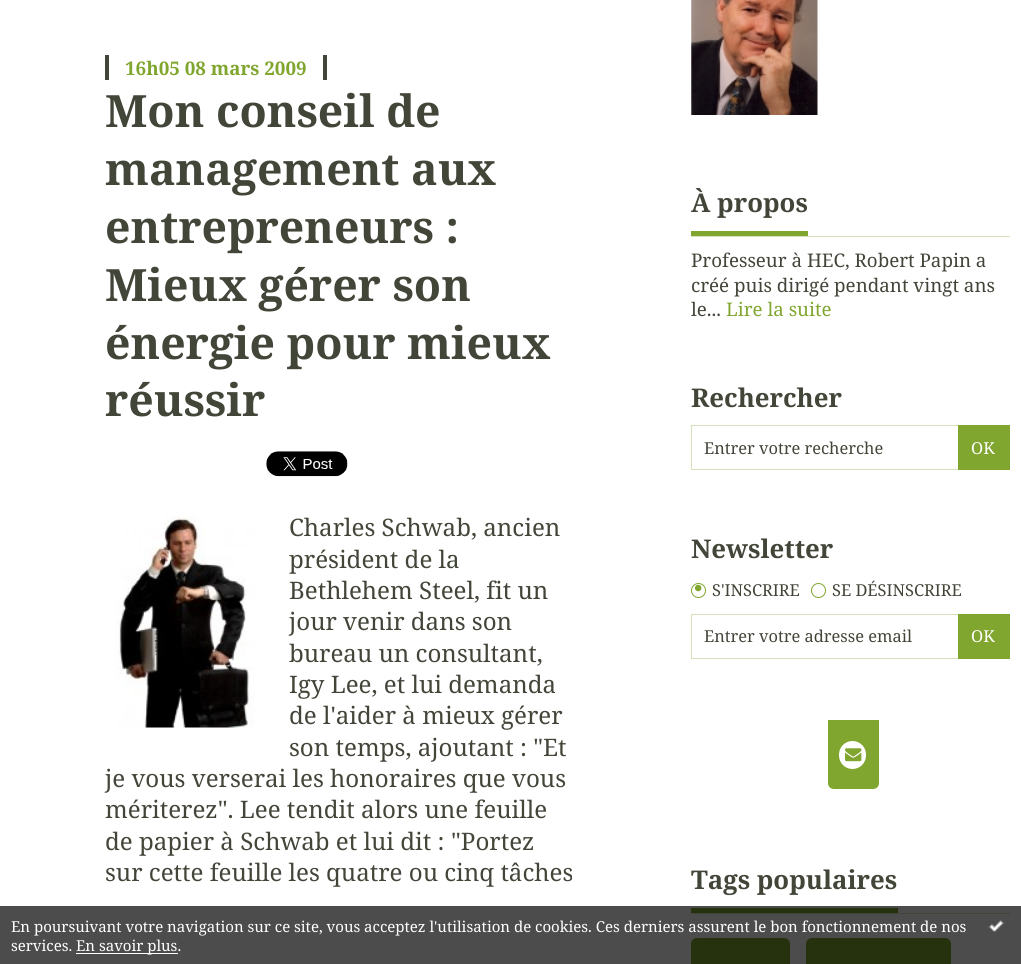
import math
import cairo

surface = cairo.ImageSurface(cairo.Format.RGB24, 1021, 964)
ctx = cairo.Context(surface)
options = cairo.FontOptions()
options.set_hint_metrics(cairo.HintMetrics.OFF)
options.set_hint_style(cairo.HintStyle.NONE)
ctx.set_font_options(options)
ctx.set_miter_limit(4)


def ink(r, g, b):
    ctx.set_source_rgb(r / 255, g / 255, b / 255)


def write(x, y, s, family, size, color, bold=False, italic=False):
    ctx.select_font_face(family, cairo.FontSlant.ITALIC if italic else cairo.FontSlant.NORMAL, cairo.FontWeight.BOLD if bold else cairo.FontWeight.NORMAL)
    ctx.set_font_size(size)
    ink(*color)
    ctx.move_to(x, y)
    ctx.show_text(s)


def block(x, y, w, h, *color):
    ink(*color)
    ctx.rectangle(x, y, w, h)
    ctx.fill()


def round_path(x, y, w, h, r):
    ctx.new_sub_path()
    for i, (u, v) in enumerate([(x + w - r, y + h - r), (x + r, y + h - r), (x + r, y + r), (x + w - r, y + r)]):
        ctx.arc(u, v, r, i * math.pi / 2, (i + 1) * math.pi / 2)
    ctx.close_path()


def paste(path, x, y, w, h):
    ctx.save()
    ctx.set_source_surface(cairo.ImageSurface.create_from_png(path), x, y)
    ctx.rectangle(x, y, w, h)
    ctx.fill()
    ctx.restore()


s1 = dict(family="Noto Serif", size=18.75, color=(129, 166, 48), bold=True)
s2 = dict(family="Noto Serif", size=44.5, color=(66, 70, 57), bold=True)
s3 = dict(family="Noto Serif", size=24.1, color=(66, 70, 57))
s4 = dict(family="Noto Serif", size=25.75, color=(66, 70, 57), bold=True)
s5 = dict(family="Noto Serif", size=18.75, color=(66, 70, 57))
s6 = dict(family="Noto Serif", size=18.75, color=(129, 166, 48))
s7 = dict(family="Noto Serif", size=16.4, color=(66, 70, 57))
s8 = dict(family="Noto Serif", size=16.4, color=(255, 255, 255))
s9 = dict(family="Liberation Sans", size=24, color=(129, 166, 48))
s10 = dict(family="Noto Serif", size=15, color=(255, 255, 255))

ink(255, 255, 255)
ctx.paint()
write(125, 75, "16h05 08 mars 2009", **s1)
block(105, 55, 4, 25, 66, 70, 57)
block(323, 55, 4, 25, 66, 70, 57)
write(105, 127, "Mon conseil de", **s2)
write(105, 185, "management aux", **s2)
write(105, 243, "entrepreneurs :", **s2)
write(105, 301, "Mieux gérer son", **s2)
write(105, 359, "énergie pour mieux", **s2)
write(105, 416, "réussir", **s2)
paste("pic1.png", 266, 451, 82, 26)
paste("pic2.png", 115, 516, 140, 212)
write(289, 536, "Charles Schwab, ancien", **s3)
write(289, 568, "président de la", **s3)
write(289, 599, "Bethlehem Steel, fit un", **s3)
write(289, 630, "jour venir dans son", **s3)
write(289, 662, "bureau un consultant,", **s3)
write(289, 693, "Igy Lee, et lui demanda", **s3)
write(289, 724, "de l'aider à mieux gérer", **s3)
write(289, 756, "son temps, ajoutant : \"Et", **s3)
write(105, 787, "je vous verserai les honoraires que vous", **s3)
write(105, 818, "mériterez\". Lee tendit alors une feuille", **s3)
write(105, 850, "de papier à Schwab et lui dit :", **s3)
write(451, 850, "\"Portez", **s3)
write(105, 881, "sur cette feuille les quatre ou cinq tâches", **s3)
paste("pic3.png", 691, 0, 127, 115)
block(691, 236, 319, 1, 213, 225, 188)
block(691, 231, 117, 5, 129, 166, 48)
write(691, 212, "À propos", **s4)
write(691, 267, "Professeur à HEC, Robert Papin a", **s5)
write(691, 292, "créé puis dirigé pendant vingt ans", **s5)
write(691, 316, "le...", **s5)
write(726, 316, "Lire la suite", **s6)
write(691, 407, "Rechercher", **s4)
ctx.rectangle(691.5, 425.5, 318, 44)
ink(213, 225, 188)
ctx.set_line_width(1)
ctx.stroke()
write(704, 454, "Entrer votre recherche", **s7)
block(958, 425, 52, 45, 129, 166, 48)
write(971, 454, "OK", **s8)
write(691, 558, "Newsletter", **s4)
ctx.new_path()
ctx.arc(698.5, 590.5, 7, 0, 2 * math.pi)
ink(129, 166, 48)
ctx.stroke()
write(694, 596, "•", **s9)
write(712, 596, "S'INSCRIRE", **s7)
ctx.new_path()
ctx.arc(818.5, 590.5, 7, 0, 2 * math.pi)
ink(129, 166, 48)
ctx.stroke()
write(832, 596, "SE DÉSINSCRIRE", **s7)
ctx.rectangle(691.5, 614.5, 318, 44)
ink(213, 225, 188)
ctx.stroke()
write(704, 642, "Entrer votre adresse email", **s7)
block(958, 614, 52, 45, 129, 166, 48)
write(971, 642, "OK", **s8)
gradient = cairo.LinearGradient(853, 720, 853, 789)
gradient.add_color_stop_rgba(0, 0.502, 0.651, 0.188, 1)
gradient.add_color_stop_rgba(0.3, 0.506, 0.651, 0.188, 1)
ctx.set_source(gradient)
ctx.new_path()
ctx.move_to(828, 720)
ctx.line_to(879, 720)
ctx.line_to(879, 783)
ctx.curve_to(879, 786.5, 876.5, 789, 873, 789)
ctx.line_to(834, 789)
ctx.curve_to(830.5, 789, 828, 786.5, 828, 783)
ctx.close_path()
ctx.fill()
ink(255, 255, 255)
round_path(839, 741, 27, 28, 13.5)
ctx.fill()
paste("pic4.png", 845, 748, 17, 14)
block(691, 913, 319, 1, 213, 225, 188)
block(691, 908, 207, 5, 129, 166, 48)
write(691, 889, "Tags populaires", **s4)
ink(129, 166, 48)
round_path(691, 938, 99, 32, 6)
ctx.fill()
round_path(806, 938, 145, 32, 6)
ctx.fill()
ctx.set_source_rgba(0, 0, 0, 0.7)
ctx.rectangle(0, 906, 1021, 58)
ctx.fill()
write(11, 932, "En poursuivant votre navigation sur ce site, vous acceptez l'utilisation de cookies. Ces derniers assurent le bon fonctionnement de nos", **s10)
write(11, 951, "services.", **s10)
block(76, 953, 102, 1, 255, 255, 255)
write(76, 951, "En savoir plus.", **s10)
paste("pic5.png", 988, 920, 17, 12)
surface.write_to_png("screenshot.png")
